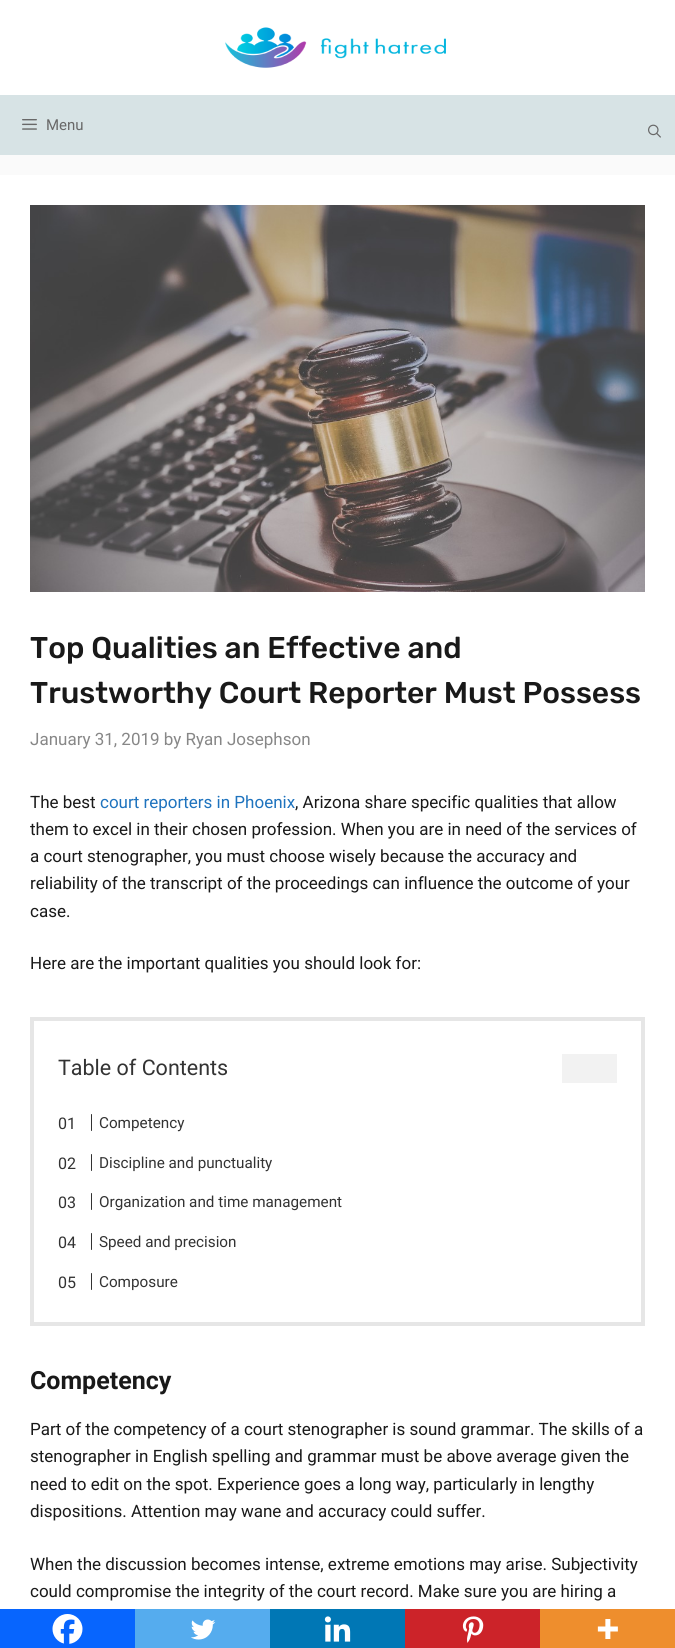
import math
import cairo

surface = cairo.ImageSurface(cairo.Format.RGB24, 675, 1648)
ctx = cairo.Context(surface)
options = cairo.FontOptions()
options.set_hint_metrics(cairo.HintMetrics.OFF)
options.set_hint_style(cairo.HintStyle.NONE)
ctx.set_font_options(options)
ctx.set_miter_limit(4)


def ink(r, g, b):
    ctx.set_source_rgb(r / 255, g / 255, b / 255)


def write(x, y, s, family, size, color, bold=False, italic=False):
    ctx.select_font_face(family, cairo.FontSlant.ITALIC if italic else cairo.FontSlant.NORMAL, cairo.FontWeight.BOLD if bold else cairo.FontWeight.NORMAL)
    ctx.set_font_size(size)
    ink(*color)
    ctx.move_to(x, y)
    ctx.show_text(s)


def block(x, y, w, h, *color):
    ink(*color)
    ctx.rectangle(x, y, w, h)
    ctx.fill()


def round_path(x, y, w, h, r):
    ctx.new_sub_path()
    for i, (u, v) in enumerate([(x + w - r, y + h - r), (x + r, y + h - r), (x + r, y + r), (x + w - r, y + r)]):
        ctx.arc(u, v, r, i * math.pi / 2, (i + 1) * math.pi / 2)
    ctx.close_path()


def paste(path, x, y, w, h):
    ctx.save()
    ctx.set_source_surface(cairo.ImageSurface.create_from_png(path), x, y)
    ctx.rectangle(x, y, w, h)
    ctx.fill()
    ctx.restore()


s1 = dict(family="Roboto", size=15, color=(104, 104, 104))
s2 = dict(family="Rubik Medium", size=30, color=(25, 25, 25))
s3 = dict(family="Roboto", size=17, color=(135, 135, 135))
s4 = dict(family="Roboto", size=17, color=(25, 25, 25))
s5 = dict(family="Roboto", size=17, color=(30, 115, 190))
s6 = dict(family="Roboto", size=21.5, color=(51, 51, 51))
s7 = dict(family="Roboto", size=16, color=(51, 51, 51))
s8 = dict(family="Roboto", size=15.25, color=(51, 51, 51))
s9 = dict(family="Roboto", size=25, color=(25, 25, 25), bold=True)

ink(250, 250, 250)
ctx.paint()
block(0, 0, 675, 95, 255, 255, 255)
paste("pic1.png", 225, 27, 221, 41)
block(0, 95, 675, 60, 215, 227, 229)
paste("pic2.png", 22, 119, 15, 11)
write(46, 130, "Menu", **s1)
paste("pic3.png", 648, 124, 13, 14)
block(0, 175, 675, 1434, 255, 255, 255)
paste("pic4.png", 30, 205, 615, 387)
write(30, 658, "Top Qualities an Effective and", **s2)
write(30, 703, "Trustworthy Court Reporter Must Possess", **s2)
write(30, 745, "January 31, 2019 by Ryan Josephson", **s3)
write(30, 808, "The best", **s4)
write(100, 808, "court reporters in Phoenix", **s5)
write(295, 808, ", Arizona share specific qualities that allow", **s4)
write(30, 835, "them to excel in their chosen profession. When you are in need of the services of", **s4)
write(30, 862, "a court stenographer, you must choose wisely because the accuracy and", **s4)
write(30, 889, "reliability of the transcript of the proceedings can influence the outcome of your", **s4)
write(30, 917, "case.", **s4)
write(30, 969, "Here are the important qualities you should look for:", **s4)
ctx.rectangle(32, 1019, 611, 305)
ink(230, 230, 230)
ctx.set_line_width(4)
ctx.stroke()
write(58, 1075, "Table of Contents", **s6)
block(562, 1054, 55, 29, 242, 242, 242)
write(58, 1129, "01", **s7)
round_path(91, 1114, 1, 17, 0.5)
ctx.fill()
write(99, 1128, "Competency", **s8)
write(58, 1169, "02", **s7)
round_path(91, 1154, 1, 17, 0.5)
ctx.fill()
write(99, 1168, "Discipline and punctuality", **s8)
write(58, 1208, "03", **s7)
round_path(91, 1193, 1, 17, 0.5)
ctx.fill()
write(99, 1207, "Organization and time management", **s8)
write(58, 1248, "04", **s7)
round_path(91, 1233, 1, 17, 0.5)
ctx.fill()
write(99, 1247, "Speed and precision", **s8)
write(58, 1288, "05", **s7)
round_path(91, 1273, 1, 17, 0.5)
ctx.fill()
write(99, 1287, "Composure", **s8)
write(30, 1389, "Competency", **s9)
write(30, 1435, "Part of the competency of a court stenographer is sound grammar. The skills of a", **s4)
write(30, 1462, "stenographer in English spelling and grammar must be above average given the", **s4)
write(30, 1490, "need to edit on the spot. Experience goes a long way, particularly in lengthy", **s4)
write(30, 1517, "dispositions. Attention may wane and accuracy could suffer.", **s4)
write(30, 1570, "When the discussion becomes intense, extreme emotions may arise. Subjectivity", **s4)
write(30, 1597, "could compromise the integrity of the court record. Make sure you are hiring a", **s4)
block(0, 1609, 135, 39, 7, 101, 254)
paste("pic5.png", 52, 1614, 31, 30)
block(135, 1609, 135, 39, 85, 172, 238)
paste("pic6.png", 191, 1619, 25, 21)
block(270, 1609, 135, 39, 0, 119, 181)
paste("pic7.png", 324, 1616, 27, 26)
block(405, 1609, 135, 39, 204, 35, 41)
paste("pic8.png", 462, 1616, 22, 27)
block(540, 1609, 135, 39, 238, 142, 45)
paste("pic9.png", 597, 1619, 21, 20)
surface.write_to_png("screenshot.png")
